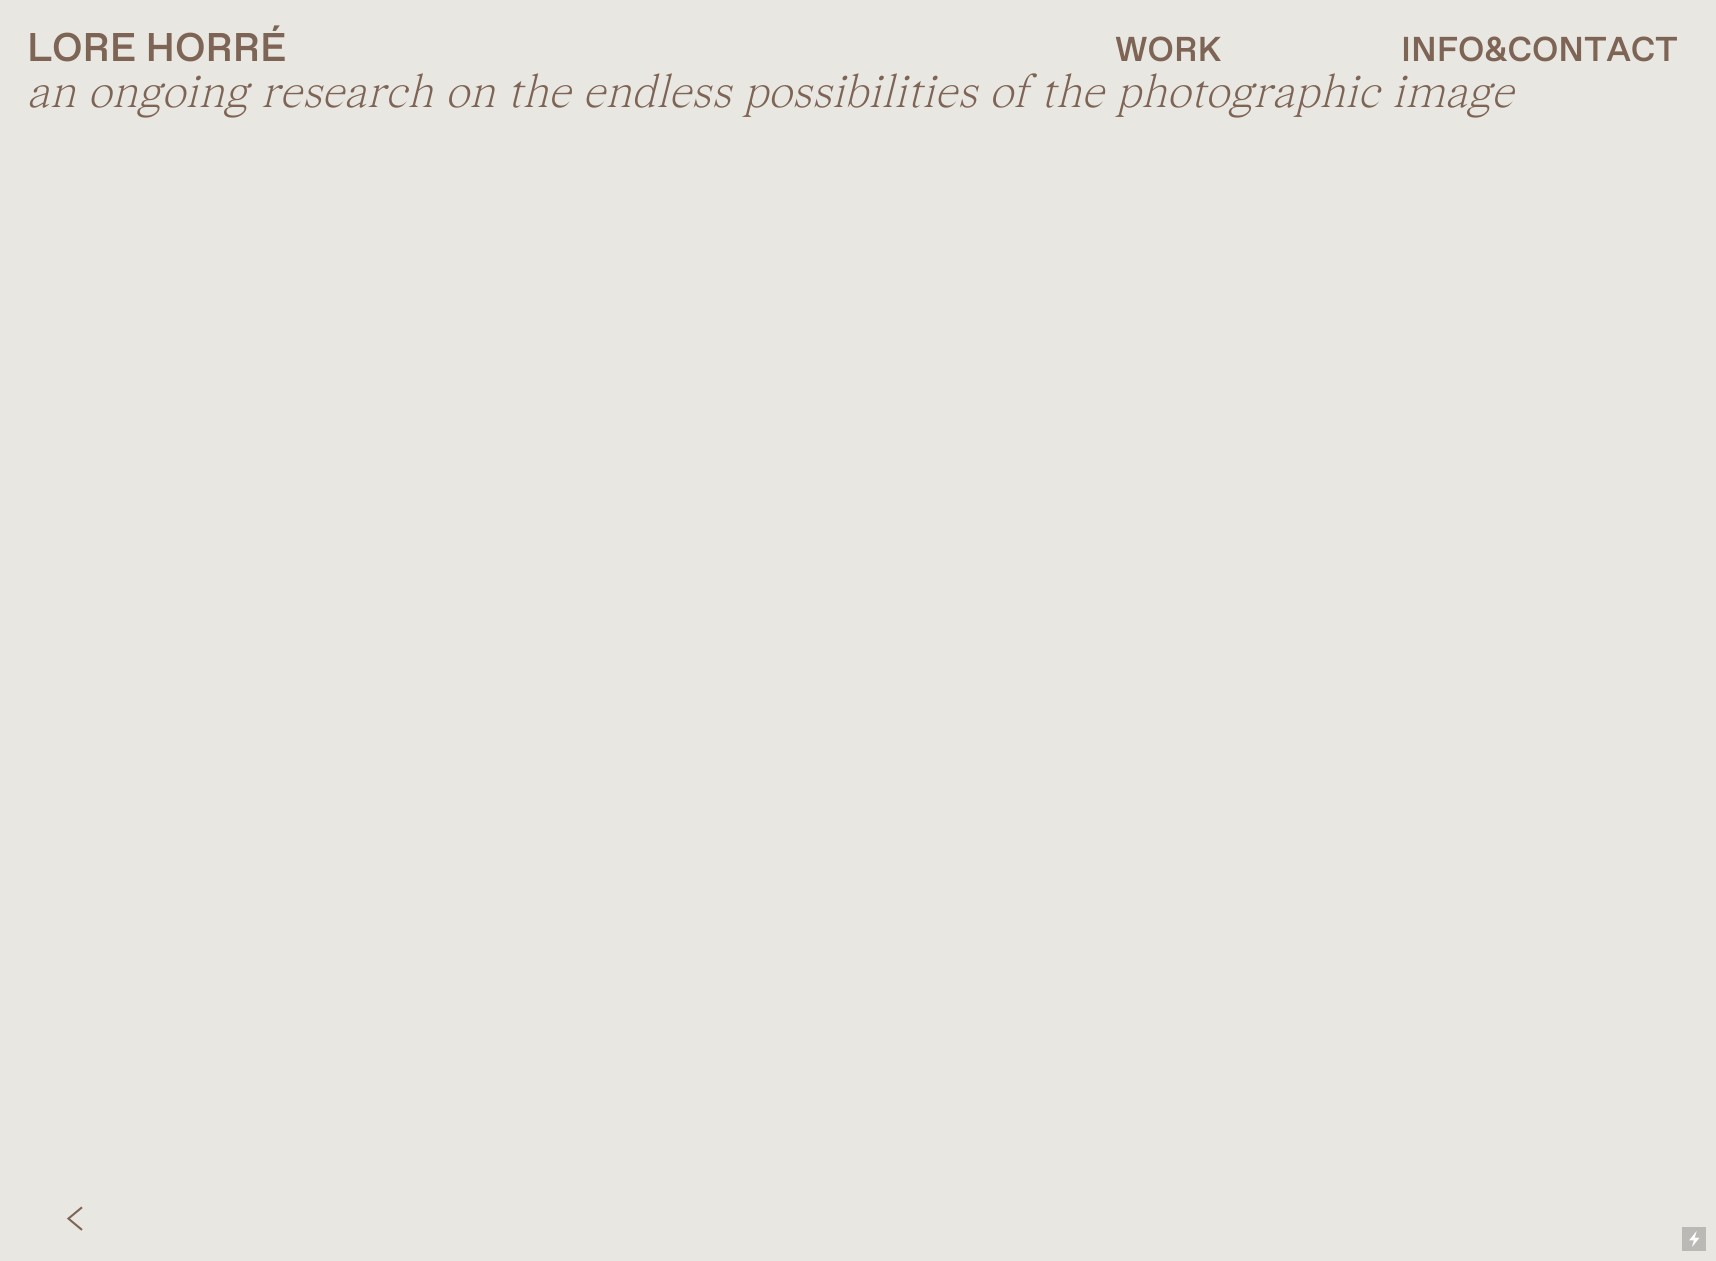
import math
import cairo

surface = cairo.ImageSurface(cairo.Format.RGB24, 1716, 1261)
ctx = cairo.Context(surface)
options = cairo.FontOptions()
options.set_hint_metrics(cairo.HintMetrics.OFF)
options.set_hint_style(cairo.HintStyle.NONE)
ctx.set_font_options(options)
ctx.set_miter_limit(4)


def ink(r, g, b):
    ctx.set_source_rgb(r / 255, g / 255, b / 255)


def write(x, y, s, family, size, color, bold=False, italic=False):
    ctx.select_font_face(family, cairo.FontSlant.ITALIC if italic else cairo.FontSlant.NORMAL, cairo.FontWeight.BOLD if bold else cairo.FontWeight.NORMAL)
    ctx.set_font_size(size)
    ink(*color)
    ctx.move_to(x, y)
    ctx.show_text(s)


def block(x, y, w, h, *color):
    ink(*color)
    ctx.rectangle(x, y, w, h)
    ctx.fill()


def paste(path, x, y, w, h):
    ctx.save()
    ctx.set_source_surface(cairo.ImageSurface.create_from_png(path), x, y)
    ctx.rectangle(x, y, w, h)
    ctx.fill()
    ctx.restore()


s1 = dict(family="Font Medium", size=40, color=(126, 100, 84))
s2 = dict(family="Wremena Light", size=47.2, color=(126, 100, 84), italic=True)
s3 = dict(family="Font Medium", size=34.5, color=(126, 100, 84))
s4 = dict(family="Wremena Light", size=60, color=(126, 100, 84))

ink(232, 231, 226)
ctx.paint()
write(27, 61, "LORE HORRÉ", **s1)
write(27, 107, "an ongoing research on the endless possibilities of the photographic image", **s2)
write(1115, 61, "WORK", **s3)
write(1401, 61, "INFO&CONTACT", **s3)
write(62, 1233, "<", **s4)
block(1682, 1227, 24, 24, 186, 185, 181)
paste("pic1.png", 1689, 1231, 11, 16)
surface.write_to_png("screenshot.png")
